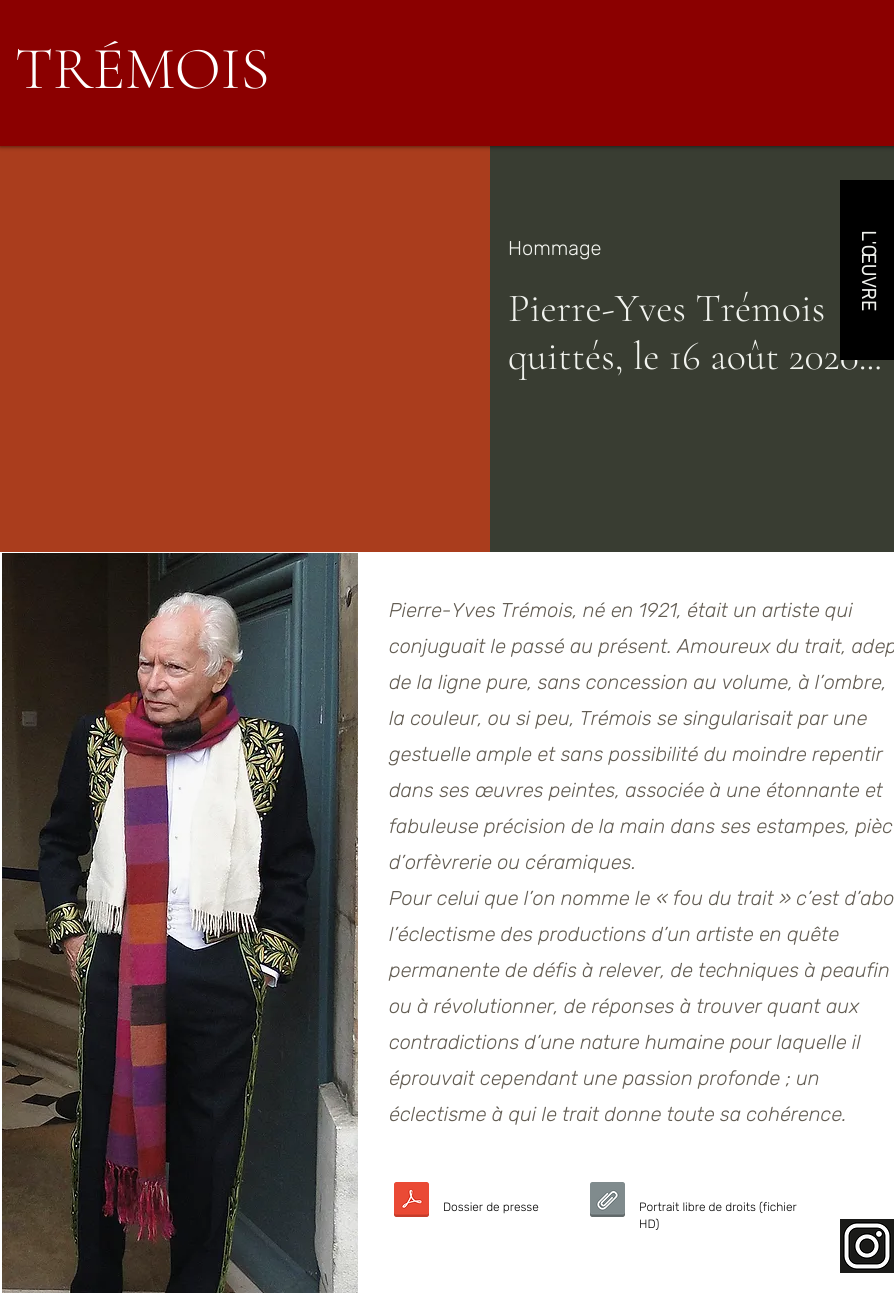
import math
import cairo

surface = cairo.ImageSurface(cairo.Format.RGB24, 894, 1293)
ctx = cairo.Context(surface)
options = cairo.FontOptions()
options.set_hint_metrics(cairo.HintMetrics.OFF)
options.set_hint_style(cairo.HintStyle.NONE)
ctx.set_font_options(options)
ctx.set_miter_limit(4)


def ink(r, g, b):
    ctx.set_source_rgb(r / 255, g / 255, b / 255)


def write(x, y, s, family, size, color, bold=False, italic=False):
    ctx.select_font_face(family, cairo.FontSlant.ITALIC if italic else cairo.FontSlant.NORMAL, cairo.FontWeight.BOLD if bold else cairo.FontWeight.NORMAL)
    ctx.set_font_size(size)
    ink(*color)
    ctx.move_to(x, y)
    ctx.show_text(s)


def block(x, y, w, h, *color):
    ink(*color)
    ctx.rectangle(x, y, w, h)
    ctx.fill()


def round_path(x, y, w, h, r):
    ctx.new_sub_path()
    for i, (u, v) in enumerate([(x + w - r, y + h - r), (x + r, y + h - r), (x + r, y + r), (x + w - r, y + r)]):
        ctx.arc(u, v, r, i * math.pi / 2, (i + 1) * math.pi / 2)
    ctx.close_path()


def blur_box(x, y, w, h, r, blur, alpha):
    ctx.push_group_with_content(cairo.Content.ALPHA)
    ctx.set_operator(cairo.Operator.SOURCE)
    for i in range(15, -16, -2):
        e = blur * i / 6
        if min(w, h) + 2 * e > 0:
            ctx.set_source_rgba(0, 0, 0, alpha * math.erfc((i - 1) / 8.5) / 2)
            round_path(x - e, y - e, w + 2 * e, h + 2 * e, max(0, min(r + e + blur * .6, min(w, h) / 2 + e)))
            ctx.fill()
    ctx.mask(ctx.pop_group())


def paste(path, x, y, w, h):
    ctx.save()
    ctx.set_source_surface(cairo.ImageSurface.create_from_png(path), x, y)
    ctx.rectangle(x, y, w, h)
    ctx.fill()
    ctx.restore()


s1 = dict(family="Cormorant Garamond Light", size=60, color=(255, 255, 255))
s2 = dict(family="Cormorant Garamond Light", size=40, color=(241, 243, 238))
s3 = dict(family="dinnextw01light", size=20, color=(241, 243, 238), bold=True)
s4 = dict(family="Rubik Light", size=20, color=(241, 243, 238))
s5 = dict(family="Rubik Light", size=20, color=(99, 93, 83), italic=True)
s6 = dict(family="Rubik Light", size=12, color=(0, 0, 0))

ink(170, 61, 29)
ctx.paint()
block(490, 146, 404, 406, 57, 61, 50)
ink(0, 0, 0)
blur_box(0, 0, 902, 146, 0, 2.5, 0.7)
block(0, 0, 894, 146, 139, 0, 0)
write(15, 88, "TRÉMOIS", **s1)
write(508, 369, "quittés, le 16 août 2020...", **s2)
block(840, 180, 54, 180, 0, 0, 0)
ctx.save()
ctx.translate(862, 230)
ctx.rotate(90 * math.pi / 180)
write(0, 0, "L'ŒUVRE", **s3)
ctx.restore()
write(508, 255, "Hommage", **s4)
write(508, 321, "Pierre-Yves Trémois", **s2)
block(0, 552, 894, 741, 255, 255, 255)
paste("pic1.png", 2, 553, 356, 740)
write(389, 617, "Pierre-Yves Trémois, né en 1921, était un artiste qui", **s5)
write(389, 653, "conjuguait le passé au présent. Amoureux du trait, adep", **s5)
write(389, 689, "de la ligne pure, sans concession au volume, à l’ombre,", **s5)
write(389, 725, "la couleur, ou si peu, Trémois se singularisait par une", **s5)
write(389, 761, "gestuelle ample et sans possibilité du moindre repentir", **s5)
write(389, 797, "dans ses œuvres peintes, associée à une étonnante et", **s5)
write(389, 833, "fabuleuse précision de la main dans ses estampes, pièc", **s5)
write(389, 869, "d’orfèvrerie ou céramiques.", **s5)
write(389, 905, "Pour celui que l’on nomme le « fou du trait » c’est d’abo", **s5)
write(389, 941, "l’éclectisme des productions d’un artiste en quête", **s5)
write(389, 977, "permanente de défis à relever, de techniques à peaufin", **s5)
write(389, 1013, "ou à révolutionner, de réponses à trouver quant aux", **s5)
write(389, 1049, "contradictions d’une nature humaine pour laquelle il", **s5)
write(389, 1085, "éprouvait cependant une passion profonde ; un", **s5)
write(389, 1121, "éclectisme à qui le trait donne toute sa cohérence.", **s5)
paste("pic2.png", 394, 1182, 35, 35)
write(443, 1211, "Dossier de presse", **s6)
paste("pic3.png", 590, 1182, 35, 35)
write(639, 1211, "Portrait libre de droits (fichier", **s6)
write(639, 1228, "HD)", **s6)
paste("pic4.png", 840, 1219, 54, 54)
surface.write_to_png("screenshot.png")
